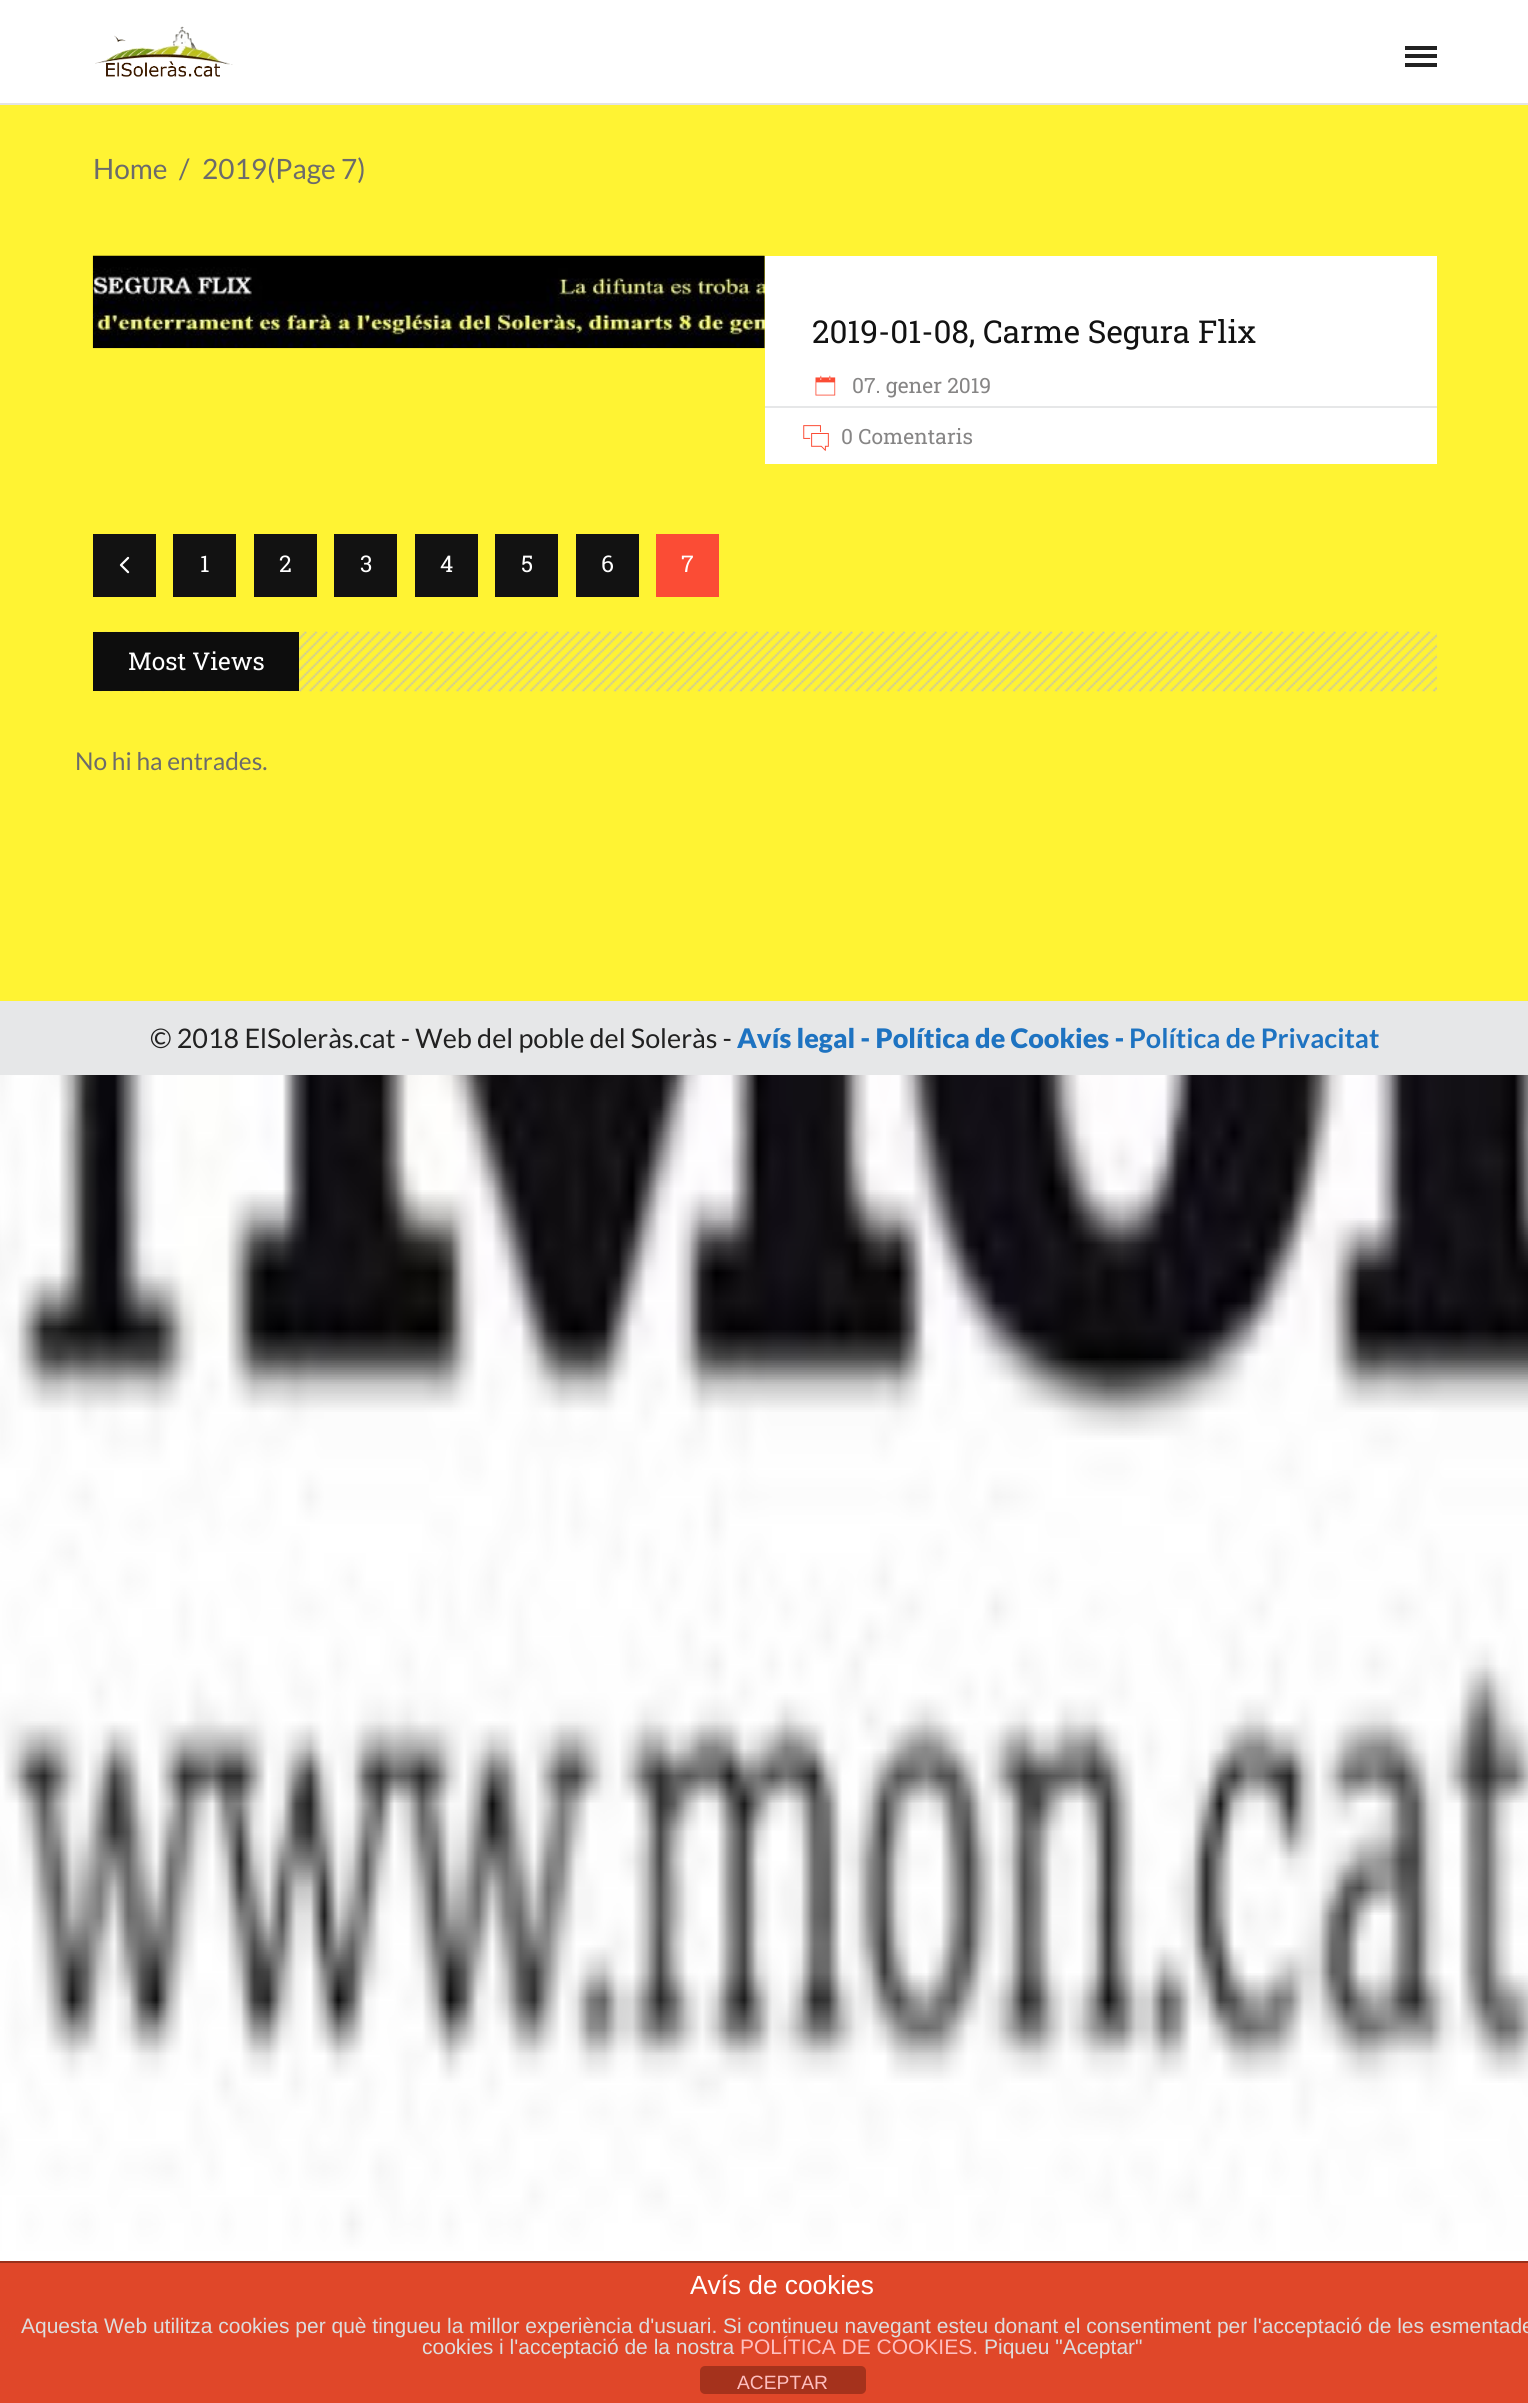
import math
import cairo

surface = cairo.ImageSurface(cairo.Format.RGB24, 1528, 2403)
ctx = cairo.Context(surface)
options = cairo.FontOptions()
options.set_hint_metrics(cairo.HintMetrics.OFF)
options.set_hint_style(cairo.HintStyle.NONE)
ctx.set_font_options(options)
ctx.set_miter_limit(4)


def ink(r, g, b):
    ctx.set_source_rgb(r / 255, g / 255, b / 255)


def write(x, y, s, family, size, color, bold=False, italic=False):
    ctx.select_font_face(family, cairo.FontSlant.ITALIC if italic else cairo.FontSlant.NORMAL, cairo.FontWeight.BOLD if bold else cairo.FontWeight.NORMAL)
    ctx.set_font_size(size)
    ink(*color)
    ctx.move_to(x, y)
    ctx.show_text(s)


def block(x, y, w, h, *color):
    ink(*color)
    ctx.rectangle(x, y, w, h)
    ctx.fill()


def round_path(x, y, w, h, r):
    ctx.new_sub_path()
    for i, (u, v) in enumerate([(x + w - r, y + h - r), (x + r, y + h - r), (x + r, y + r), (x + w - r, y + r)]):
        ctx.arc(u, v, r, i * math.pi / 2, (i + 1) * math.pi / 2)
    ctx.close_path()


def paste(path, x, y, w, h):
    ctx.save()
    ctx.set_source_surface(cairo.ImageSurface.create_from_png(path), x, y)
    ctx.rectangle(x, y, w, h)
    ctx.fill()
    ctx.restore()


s1 = dict(family="Lato", size=28, color=(108, 107, 107))
s2 = dict(family="Roboto Slab", size=31.5, color=(18, 18, 18))
s3 = dict(family="Roboto Slab", size=21, color=(134, 133, 133))
s4 = dict(family="Roboto Slab", size=23, color=(255, 255, 255))
s5 = dict(family="Roboto Slab", size=24.5, color=(255, 255, 255))
s6 = dict(family="Lato", size=24.5, color=(108, 107, 107))
s7 = dict(family="Lato", size=26.95, color=(33, 33, 33))
s8 = dict(family="Lato Black", size=26.95, color=(30, 115, 193))
s9 = dict(family="Lato", size=26.95, color=(30, 115, 193), bold=True)
s10 = dict(family="Liberation Sans", size=26.25, color=(255, 255, 255))
s11 = dict(family="Liberation Sans", size=21, color=(221, 221, 221))
s12 = dict(family="Liberation Sans", size=21, color=(254, 190, 190))
s13 = dict(family="Liberation Sans", size=19.25, color=(254, 190, 190))

ink(255, 255, 255)
ctx.paint()
block(0, 105, 1528, 896, 255, 243, 51)
block(0, 103, 1528, 2, 228, 228, 228)
paste("pic1.png", 95, 26, 138, 51)
block(1405, 46, 32, 4, 34, 34, 34)
block(1405, 54, 32, 4, 34, 34, 34)
block(1405, 63, 32, 4, 34, 34, 34)
write(93, 179, "Home", **s1)
write(179, 179, "/", **s1)
write(202, 179, "2019(Page 7)", **s1)
paste("pic2.png", 92, 255, 673, 94)
block(765, 256, 672, 208, 255, 255, 255)
write(812, 343, "2019-01-08, Carme Segura Flix", **s2)
paste("pic3.png", 815, 375, 21, 21)
write(852, 393, "07. gener 2019", **s3)
block(765, 406, 672, 2, 230, 231, 232)
paste("pic4.png", 803, 425, 26, 26)
write(841, 444, "0 Comentaris", **s3)
block(93, 534, 63, 63, 18, 18, 18)
paste("pic5.png", 119, 556, 11, 18)
block(173, 534, 63, 63, 18, 18, 18)
write(200, 572, "1", **s4)
block(254, 534, 63, 63, 18, 18, 18)
write(279, 572, "2", **s4)
block(334, 534, 63, 63, 18, 18, 18)
write(360, 572, "3", **s4)
block(415, 534, 63, 63, 18, 18, 18)
write(440, 572, "4", **s4)
block(495, 534, 63, 63, 18, 18, 18)
write(521, 572, "5", **s4)
block(576, 534, 63, 63, 18, 18, 18)
write(601, 572, "6", **s4)
block(656, 534, 63, 63, 251, 76, 53)
write(681, 572, "7", **s4)
paste("pic6.png", 94, 631, 1343, 61)
block(93, 632, 206, 59, 13, 13, 13)
write(128, 670, "Most Views", **s5)
write(75, 770, "No hi ha entrades.", **s6)
block(0, 1001, 1528, 74, 230, 231, 232)
write(150, 1048, "© 2018 ElSoleràs.cat - Web del poble del Soleràs -", **s7)
write(737, 1048, "Avís legal - Política de Cookies -", **s8)
write(1129, 1048, "Política de Privacitat", **s9)
paste("pic7.png", 0, 1075, 1528, 1186)
block(0, 2263, 1528, 140, 224, 71, 41)
block(0, 2261, 1528, 2, 153, 48, 27)
write(690, 2294, "Avís de cookies", **s10)
write(21, 2333, "Aquesta Web utilitza cookies per què tingueu la millor experiència d'usuari. Si continueu navegant esteu donant el consentiment per l'acceptació de les esmentade", **s11)
write(422, 2354, "cookies i l'acceptació de la nostra", **s11)
write(740, 2354, "POLÍTICA DE COOKIES.", **s12)
write(984, 2354, "Piqueu \"Aceptar\"", **s11)
ink(165, 50, 28)
round_path(700, 2366, 166, 28, 5)
ctx.fill()
write(737, 2389, "ACEPTAR", **s13)
surface.write_to_png("screenshot.png")
